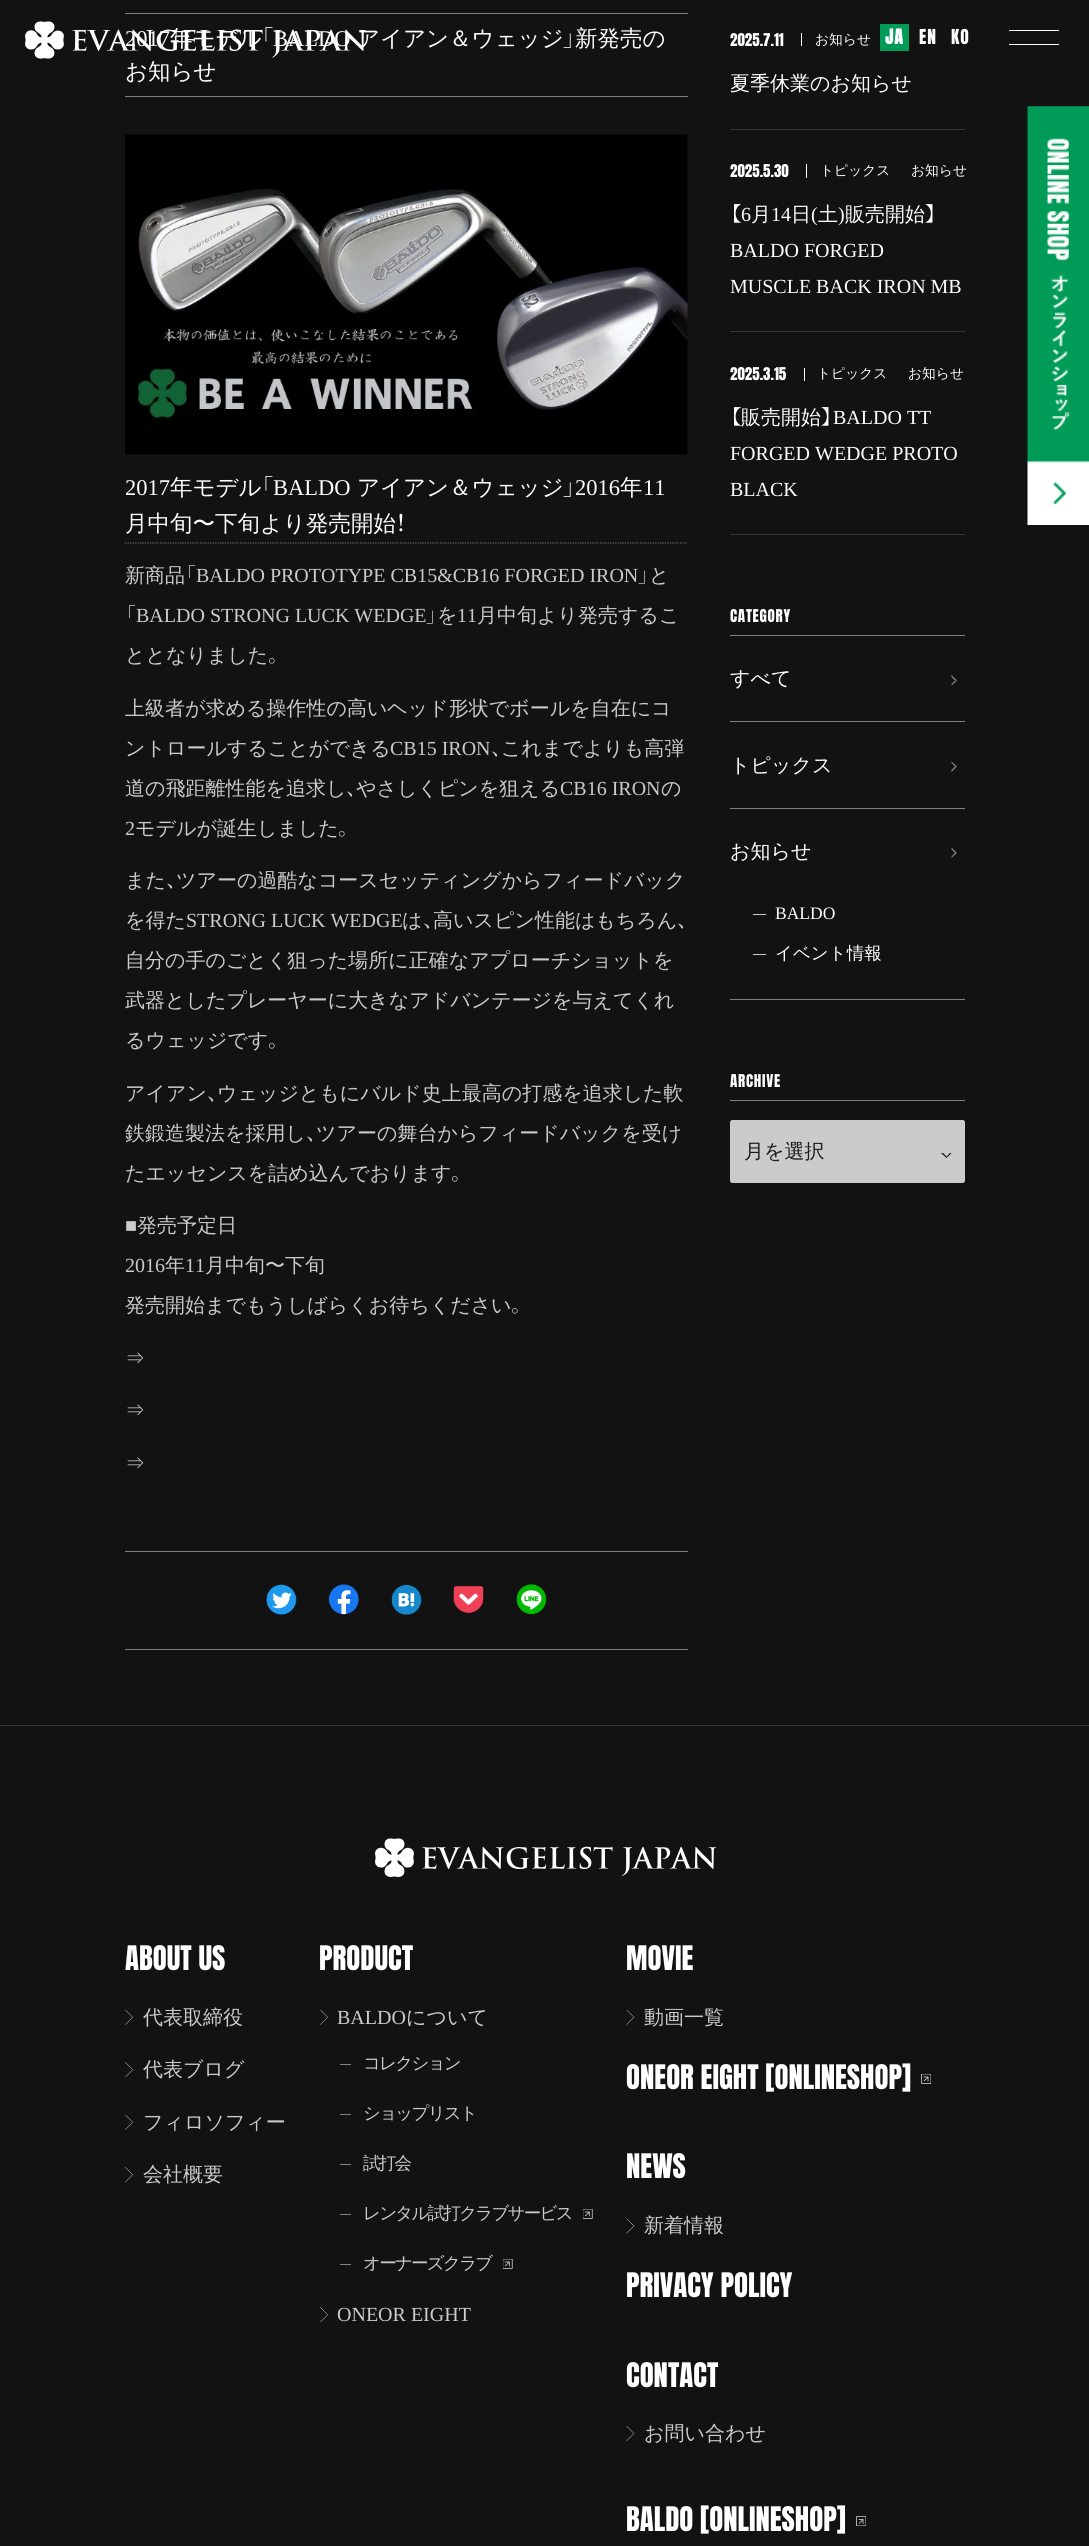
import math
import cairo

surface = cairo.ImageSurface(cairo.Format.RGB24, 1089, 2546)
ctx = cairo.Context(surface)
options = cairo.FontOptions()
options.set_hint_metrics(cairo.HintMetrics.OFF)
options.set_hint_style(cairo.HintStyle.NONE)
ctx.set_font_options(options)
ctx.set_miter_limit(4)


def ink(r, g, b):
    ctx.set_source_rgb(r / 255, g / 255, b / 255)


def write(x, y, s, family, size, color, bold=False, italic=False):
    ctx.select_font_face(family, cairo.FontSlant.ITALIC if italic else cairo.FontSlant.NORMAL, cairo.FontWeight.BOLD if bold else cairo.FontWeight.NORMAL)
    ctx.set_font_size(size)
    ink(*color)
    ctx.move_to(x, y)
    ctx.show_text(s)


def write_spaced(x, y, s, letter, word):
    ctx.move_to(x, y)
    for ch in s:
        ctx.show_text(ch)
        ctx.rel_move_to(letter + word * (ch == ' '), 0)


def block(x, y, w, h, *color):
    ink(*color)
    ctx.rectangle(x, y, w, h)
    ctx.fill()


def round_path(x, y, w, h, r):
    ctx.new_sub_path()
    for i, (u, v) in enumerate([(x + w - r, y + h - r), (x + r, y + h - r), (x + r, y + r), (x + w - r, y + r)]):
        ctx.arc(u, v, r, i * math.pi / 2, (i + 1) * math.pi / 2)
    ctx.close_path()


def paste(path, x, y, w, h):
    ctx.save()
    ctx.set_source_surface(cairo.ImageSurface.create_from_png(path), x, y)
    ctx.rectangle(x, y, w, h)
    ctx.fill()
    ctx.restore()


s1 = dict(family="Liberation Serif", size=22.5, color=(255, 255, 255))
s2 = dict(family="WenQuanYi Zen Hei Medium", size=22.5, color=(255, 255, 255))
s3 = dict(family="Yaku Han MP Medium", size=22.5, color=(255, 255, 255))
s4 = dict(family="WenQuanYi Zen Hei Medium", size=20, color=(203, 203, 203))
s5 = dict(family="Yaku Han MP Medium", size=20, color=(203, 203, 203))
s6 = dict(family="Liberation Serif", size=20, color=(203, 203, 203))
s7 = dict(family="Anton", size=15, color=(255, 255, 255))
s8 = dict(family="WenQuanYi Zen Hei Medium", size=13.75, color=(255, 255, 255))
s9 = dict(family="WenQuanYi Zen Hei Medium", size=20, color=(255, 255, 255))
s10 = dict(family="Yaku Han MP Medium", size=20, color=(255, 255, 255))
s11 = dict(family="Liberation Serif", size=20, color=(255, 255, 255))
s12 = dict(family="Liberation Serif", size=17.5, color=(255, 255, 255))
s13 = dict(family="WenQuanYi Zen Hei Medium", size=17.5, color=(255, 255, 255))
s14 = dict(family="WenQuanYi Zen Hei Medium", size=20, color=(26, 26, 26))
s15 = dict(family="Anton", size=28.75, color=(255, 255, 255))

ink(18, 18, 18)
ctx.paint()
block(125, 13, 563, 1, 128, 128, 128)
block(125, 96, 563, 1, 128, 128, 128)
write(125, 46, "2017", **s1)
write(170, 46, "年モデル", **s2)
write(261, 46, "「", **s3)
write(273, 46, "BALDO", **s1)
write(357, 46, "アイアン＆ウェッジ", **s2)
write(563, 46, "」", **s3)
write(575, 46, "新発売の", **s2)
write(125, 79, "お知らせ", **s2)
paste("pic1.png", 125, 134, 563, 321)
ctx.new_path()
ctx.move_to(125, 543)
ctx.line_to(687.5, 543)
ink(102, 102, 102)
ctx.set_line_width(1.2)
ctx.set_dash([1.25, 1.25])
ctx.stroke()
write(125, 495, "2017", **s1)
write(170, 495, "年モデル", **s2)
write(261, 495, "「", **s3)
write(273, 495, "BALDO", **s1)
write(357, 495, "アイアン＆ウェッジ", **s2)
write(563, 495, "」", **s3)
write(575, 495, "2016", **s1)
write(620, 495, "年", **s2)
write(643, 495, "11", **s1)
write(125, 531, "月中旬〜下旬より発売開始", **s2)
write(396, 531, "！", **s3)
write(125, 582, "新商品", **s4)
write(185, 582, "「", **s5)
write(196, 582, "BALDO PROTOTYPE CB15&CB16 FORGED IRON", **s6)
write(638, 582, "」", **s5)
write(649, 582, "と", **s4)
write(125, 622, "「", **s5)
write(136, 622, "BALDO STRONG LUCK WEDGE", **s6)
write(426, 622, "」", **s5)
write(437, 622, "を", **s4)
write(457, 622, "11", **s6)
write(477, 622, "月中旬より発売するこ", **s4)
write(125, 662, "ととなりました", **s4)
write(268, 662, "。", **s5)
write(125, 715, "上級者が求める操作性の高いヘッド形状でボールを自在にコ", **s4)
write(125, 755, "ントロールすることができる", **s4)
write(390, 755, "CB15 IRON", **s6)
write(491, 755, "、", **s5)
write(501, 755, "これまでよりも高弾", **s4)
write(125, 795, "道の飛距離性能を追求し", **s4)
write(346, 795, "、", **s5)
write(356, 795, "やさしくピンを狙える", **s4)
write(560, 795, "CB16 IRON", **s6)
write(661, 795, "の", **s4)
write(125, 835, "2", **s6)
write(135, 835, "モデルが誕生しました", **s4)
write(338, 835, "。", **s5)
write(125, 887, "また", **s4)
write(166, 887, "、", **s5)
write(176, 887, "ツアーの過酷なコースセッティングからフィードバック", **s4)
write(125, 927, "を得た", **s4)
write(186, 927, "STRONG LUCK WEDGE", **s6)
write(402, 927, "は", **s4)
write(423, 927, "、", **s5)
write(433, 927, "高いスピン性能はもちろん", **s4)
write(677, 927, "、", **s5)
write(125, 967, "自分の手のごとく狙った場所に正確なアプローチショットを", **s4)
write(125, 1007, "武器としたプレーヤーに大きなアドバンテージを与えてくれ", **s4)
write(125, 1047, "るウェッジです", **s4)
write(268, 1047, "。", **s5)
write(125, 1100, "アイアン", **s4)
write(207, 1100, "、", **s5)
write(217, 1100, "ウェッジともにバルド史上最高の打感を追求した軟", **s4)
write(125, 1140, "鉄鍛造製法を採用し", **s4)
write(306, 1140, "、", **s5)
write(316, 1140, "ツアーの舞台からフィードバックを受け", **s4)
write(125, 1180, "たエッセンスを詰め込んでおります", **s4)
write(451, 1180, "。", **s5)
write(125, 1232, "■", **s6)
write(137, 1232, "発売予定日", **s4)
write(125, 1272, "2016", **s6)
write(165, 1272, "年", **s4)
write(185, 1272, "11", **s6)
write(205, 1272, "月中旬〜下旬", **s4)
write(125, 1312, "発売開始までもうしばらくお待ちください", **s4)
write(511, 1312, "。", **s5)
write(125, 1365, "⇒", **s4)
write(125, 1417, "⇒", **s4)
write(125, 1470, "⇒", **s4)
block(125, 1551, 563, 1, 128, 128, 128)
block(125, 1649, 563, 1, 128, 128, 128)
paste("pic2.png", 266, 1584, 31, 31)
paste("pic3.png", 328, 1584, 31, 31)
paste("pic4.png", 391, 1584, 31, 31)
paste("pic5.png", 453, 1585, 31, 29)
paste("pic6.png", 516, 1584, 31, 31)
write(730, 46, "2025.7.11", **s7)
block(801, 33, 1, 13, 255, 255, 255)
write(815, 44, "お知らせ", **s8)
write(730, 90, "夏季休業のお知らせ", **s9)
block(730, 129, 235, 1, 54, 54, 54)
write(730, 177, "2025.5.30", **s7)
block(806, 164, 1, 14, 255, 255, 255)
write(820, 175, "トピックス", **s8)
write(911, 175, "お知らせ", **s8)
write(730, 221, "【", **s10)
write(741, 221, "6", **s11)
write(751, 221, "月", **s9)
write(771, 221, "14", **s11)
write(791, 221, "日", **s9)
write(811, 221, "(", **s11)
write(818, 221, "土", **s9)
write(838, 221, ")", **s11)
write(845, 221, "販売開始", **s9)
write(925, 221, "】", **s10)
write(730, 257, "BALDO FORGED", **s11)
write(730, 293, "MUSCLE BACK IRON MB", **s11)
block(730, 331, 235, 1, 54, 54, 54)
write(730, 380, "2025.3.15", **s7)
block(804, 368, 1, 13, 255, 255, 255)
write(817, 378, "トピックス", **s8)
write(908, 378, "お知らせ", **s8)
write(730, 424, "【", **s10)
write(741, 424, "販売開始", **s9)
write(821, 424, "】", **s10)
write(833, 424, "BALDO TT", **s11)
write(730, 460, "FORGED WEDGE PROTO", **s11)
write(730, 496, "BLACK", **s11)
block(730, 534, 235, 1, 54, 54, 54)
block(730, 635, 235, 1, 128, 128, 128)
ctx.select_font_face("Anton")
ctx.set_font_size(15)
ink(255, 255, 255)
write_spaced(730, 622, "CATEGORY", 0.75, 0)
block(730, 721, 235, 1, 128, 128, 128)
write(730, 685, "すべて", **s9)
ink(128, 128, 128)
ctx.new_path()
ctx.move_to(951.5, 675)
ctx.line_to(957, 680.5)
ctx.line_to(955, 680.5)
ctx.line_to(951.5, 677)
ctx.close_path()
ctx.fill()
ctx.new_path()
ctx.move_to(957, 680.5)
ctx.line_to(951.5, 685.5)
ctx.line_to(951.5, 684)
ctx.line_to(955, 680.5)
ctx.close_path()
ctx.fill()
block(730, 808, 235, 1, 128, 128, 128)
write(730, 772, "トピックス", **s9)
ink(128, 128, 128)
ctx.new_path()
ctx.move_to(951.5, 761.5)
ctx.line_to(957, 766.5)
ctx.line_to(955, 766.5)
ctx.line_to(951.5, 763)
ctx.close_path()
ctx.fill()
ctx.new_path()
ctx.move_to(957, 766.5)
ctx.line_to(951.5, 772)
ctx.line_to(951.5, 770)
ctx.line_to(955, 766.5)
ctx.close_path()
ctx.fill()
block(730, 999, 235, 1, 128, 128, 128)
write(730, 858, "お知らせ", **s9)
ink(128, 128, 128)
ctx.new_path()
ctx.move_to(951.5, 847.5)
ctx.line_to(957, 853)
ctx.line_to(955, 853)
ctx.line_to(951.5, 849.5)
ctx.close_path()
ctx.move_to(957, 853)
ctx.line_to(951.5, 858)
ctx.line_to(951.5, 856.5)
ctx.line_to(955, 853)
ctx.close_path()
ctx.fill()
block(753, 914, 13, 1, 203, 203, 203)
write(775, 919, "BALDO", **s12)
block(753, 954, 13, 1, 203, 203, 203)
write(775, 959, "イベント情報", **s13)
block(730, 1100, 235, 1, 128, 128, 128)
ctx.select_font_face("Anton")
ctx.set_font_size(15)
ink(255, 255, 255)
write_spaced(730, 1087, "ARCHIVE", 0.75, 0)
ink(203, 203, 203)
round_path(730.5, 1120.5, 234, 62, 2)
ctx.fill_preserve()
ink(204, 204, 204)
ctx.set_line_width(1)
ctx.set_dash([])
ctx.stroke()
write(744, 1158, "月を選択", **s14)
ink(18, 18, 18)
ctx.new_path()
ctx.move_to(951.5, 1153)
ctx.line_to(946.5, 1158)
ctx.line_to(946.5, 1156.5)
ctx.line_to(950, 1153)
ctx.close_path()
ctx.fill()
ctx.new_path()
ctx.move_to(946.5, 1158)
ctx.line_to(941, 1153)
ctx.line_to(943, 1153)
ctx.line_to(946.5, 1156.5)
ctx.close_path()
ctx.fill()
paste("pic7.png", 25, 21, 341, 38)
block(880, 24, 29, 27, 0, 155, 87)
ctx.select_font_face("Anton", cairo.FontSlant.NORMAL, cairo.FontWeight.BOLD)
ctx.set_font_size(17.5)
ink(255, 255, 255)
write_spaced(885, 44, "JA", 1, 0)
ctx.select_font_face("Anton")
write_spaced(919, 44, "EN", 1, 0)
write_spaced(951, 44, "KO", 1, 0)
block(1009, 30, 50, 1, 255, 255, 255)
block(1009, 44, 50, 1, 255, 255, 255)
paste("pic8.png", 1027, 106, 62, 419)
block(0, 1725, 1089, 1, 51, 51, 51)
paste("pic9.png", 375, 1838, 341, 39)
write(125, 1970, "ABOUT US", **s15)
paste("pic10.png", 125, 2010, 9, 15)
write(143, 2024, "代表取締役", **s4)
paste("pic11.png", 125, 2062, 9, 16)
write(143, 2076, "代表ブログ", **s4)
paste("pic10.png", 125, 2115, 9, 15)
write(143, 2129, "フィロソフィー", **s4)
paste("pic11.png", 125, 2167, 9, 16)
write(143, 2181, "会社概要", **s4)
write(319, 1970, "PRODUCT", **s15)
paste("pic10.png", 320, 2010, 9, 15)
write(337, 2024, "BALDO", **s6)
write(406, 2024, "について", **s4)
block(340, 2064, 11, 1, 130, 130, 130)
ctx.set_font_size(17.5)
ink(203, 203, 203)
write_spaced(363, 2069, "コレクション", -1.75, 0)
block(340, 2114, 11, 1, 130, 130, 130)
ink(203, 203, 203)
write_spaced(363, 2119, "ショップリスト", -1.75, 0)
block(340, 2164, 11, 1, 130, 130, 130)
ink(203, 203, 203)
write_spaced(363, 2169, "試打会", -1.75, 0)
block(340, 2214, 11, 1, 130, 130, 130)
ink(203, 203, 203)
write_spaced(363, 2219, "レンタル試打クラブサービス", -1.75, 0)
paste("pic12.png", 583, 2209, 10, 10)
block(340, 2264, 11, 1, 130, 130, 130)
ink(203, 203, 203)
write_spaced(363, 2269, "オーナーズクラブ", -1.75, 0)
paste("pic12.png", 503, 2259, 10, 10)
paste("pic11.png", 320, 2307, 9, 16)
write(337, 2321, "ONEOR EIGHT", **s6)
write(626, 1970, "MOVIE", **s15)
paste("pic13.png", 626, 2010, 9, 15)
write(644, 2024, "動画一覧", **s4)
write(626, 2089, "ONEOR EIGHT [ONLINESHOP]", **s15)
paste("pic14.png", 921, 2074, 10, 10)
write(626, 2178, "NEWS", **s15)
paste("pic15.png", 626, 2218, 8, 16)
write(644, 2232, "新着情報", **s4)
write(626, 2297, "PRIVACY POLICY", **s15)
write(626, 2387, "CONTACT", **s15)
paste("pic16.png", 626, 2426, 9, 15)
write(644, 2440, "お問い合わせ", **s4)
write(626, 2531, "BALDO [ONLINESHOP]", **s15)
paste("pic17.png", 856, 2516, 10, 10)
surface.write_to_png("screenshot.png")
